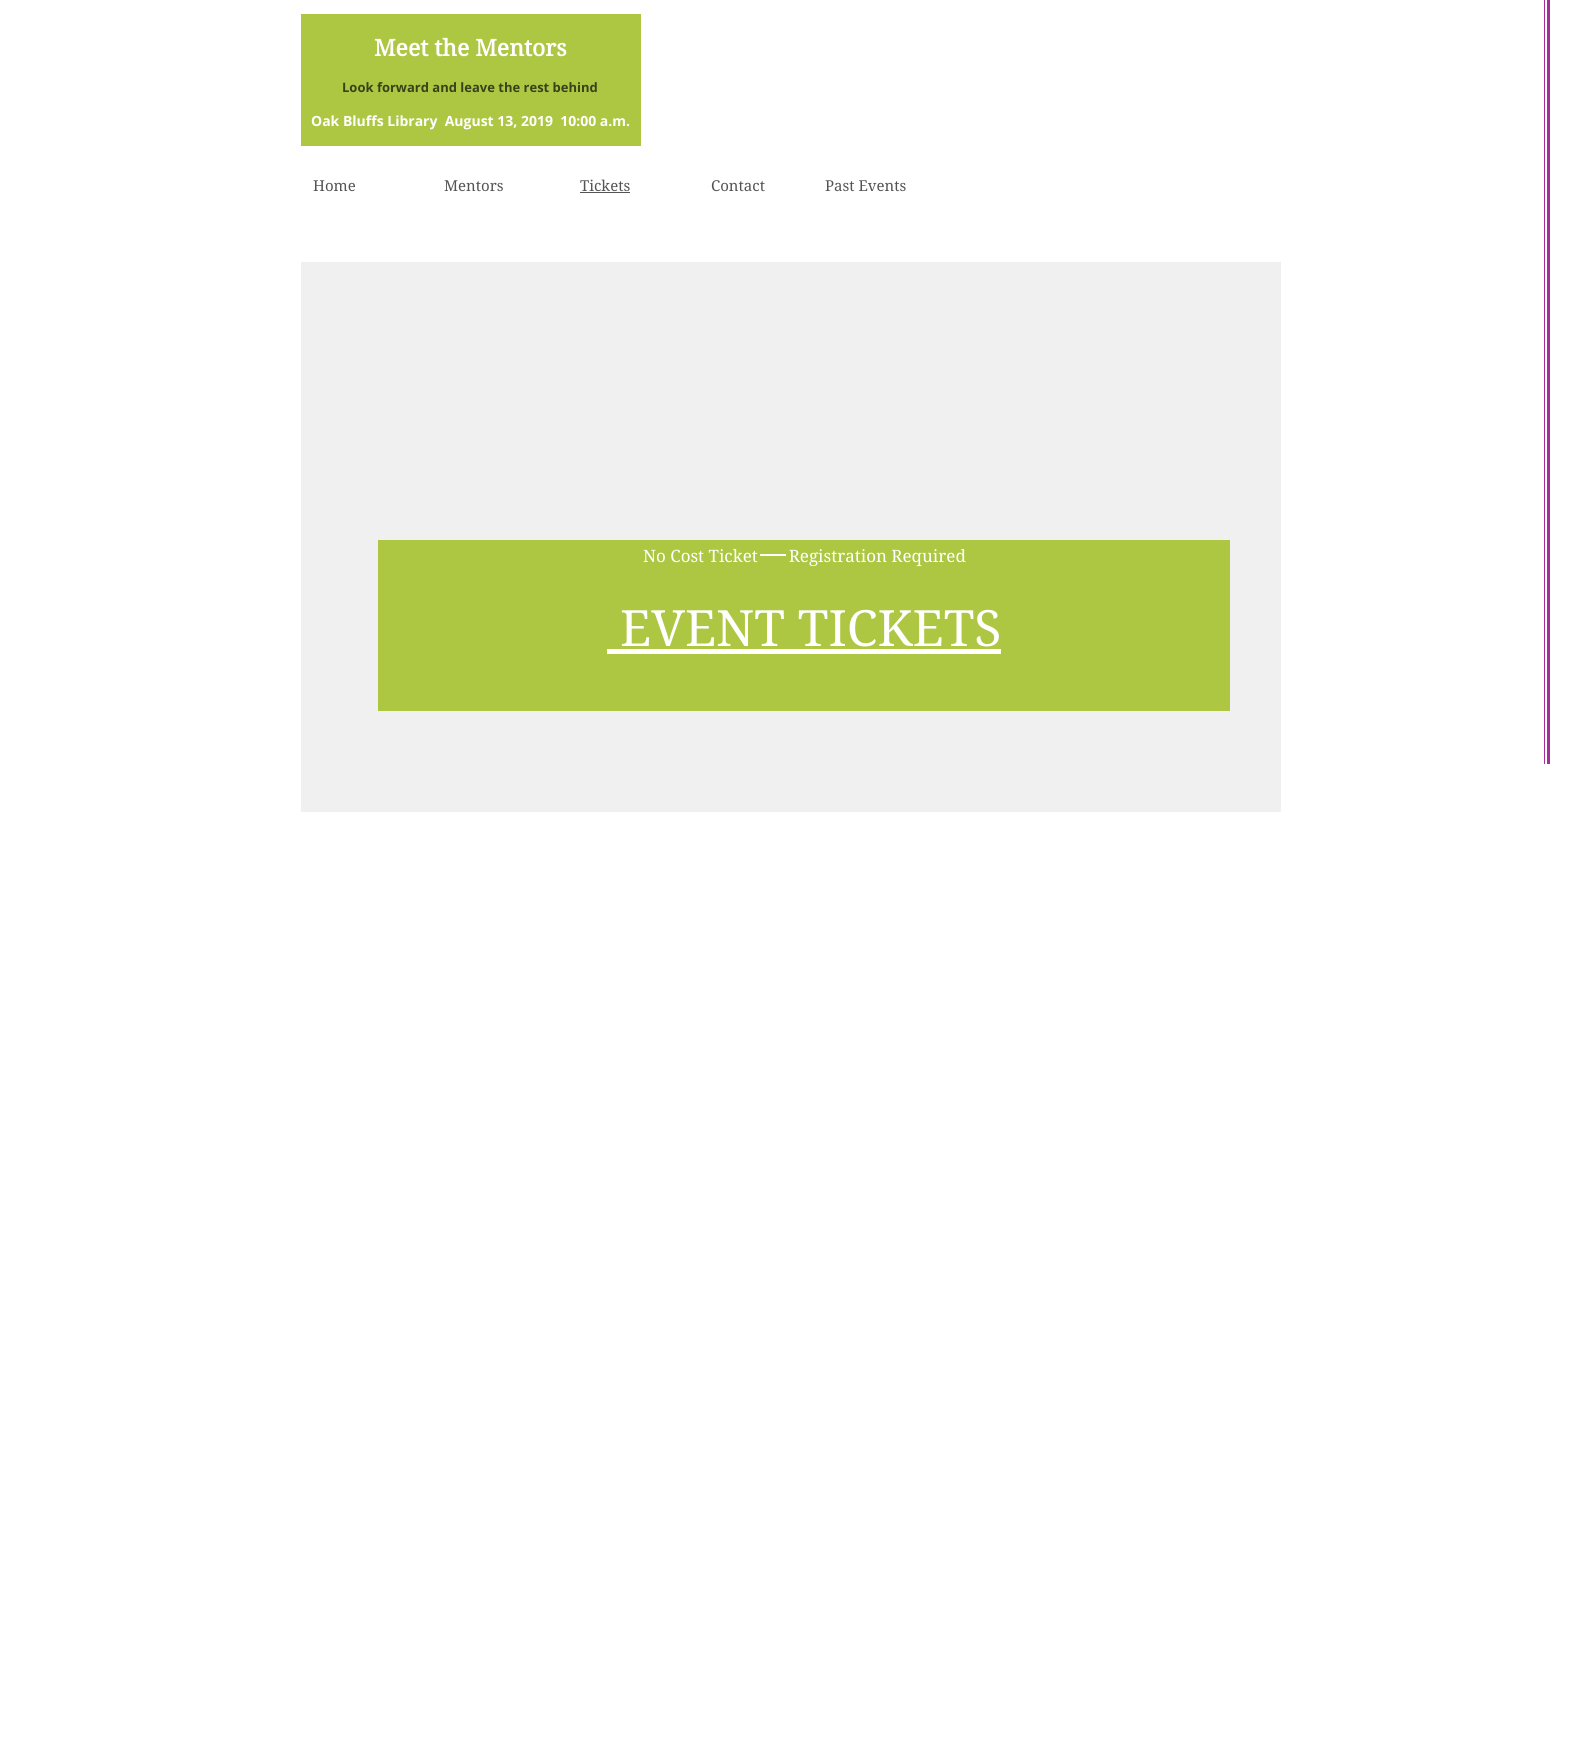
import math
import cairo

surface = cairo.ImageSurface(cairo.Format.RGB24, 1581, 1751)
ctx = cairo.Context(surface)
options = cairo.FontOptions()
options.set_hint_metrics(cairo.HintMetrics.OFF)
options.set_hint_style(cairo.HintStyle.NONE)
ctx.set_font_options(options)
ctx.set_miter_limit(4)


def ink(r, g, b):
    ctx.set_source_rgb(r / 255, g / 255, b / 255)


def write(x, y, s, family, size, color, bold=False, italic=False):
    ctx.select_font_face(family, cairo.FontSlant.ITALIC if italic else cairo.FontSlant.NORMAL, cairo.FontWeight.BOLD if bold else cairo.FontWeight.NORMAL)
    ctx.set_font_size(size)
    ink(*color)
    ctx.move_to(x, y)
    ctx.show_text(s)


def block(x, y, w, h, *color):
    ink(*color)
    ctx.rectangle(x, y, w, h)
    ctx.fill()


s1 = dict(family="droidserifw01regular", size=23, color=(255, 255, 255), bold=True)
s2 = dict(family="Open Sans", size=13, color=(56, 65, 25), bold=True)
s3 = dict(family="Open Sans", size=14, color=(255, 255, 255), bold=True)
s4 = dict(family="droidserifw01regular", size=15, color=(85, 83, 83))
s5 = dict(family="droidserifw01regular", size=17, color=(255, 255, 255))
s6 = dict(family="droidserifw01regular", size=50, color=(255, 255, 255))

ink(255, 255, 255)
ctx.paint()
block(301, 14, 340, 132, 173, 199, 67)
write(374, 56, "Meet the Mentors", **s1)
write(342, 92, "Look forward and leave the rest behind", **s2)
write(311, 126, "Oak Bluffs Library  August 13, 2019  10:00 a.m.", **s3)
write(313, 191, "Home", **s4)
write(444, 191, "Mentors", **s4)
write(580, 191, "Tickets", **s4)
block(580, 192, 50, 1, 85, 83, 83)
write(711, 191, "Contact", **s4)
write(825, 191, "Past Events", **s4)
block(301, 262, 980, 550, 240, 240, 240)
block(378, 540, 852, 171, 173, 199, 67)
write(643, 562, "No Cost Ticket       Registration Required", **s5)
block(760, 554, 26, 2, 255, 255, 255)
write(620, 646, "EVENT TICKETS", **s6)
block(607, 649, 394, 5, 255, 255, 255)
block(1547, 0, 3, 764, 166, 46, 154)
block(1544, 0, 1, 764, 166, 46, 154)
surface.write_to_png("screenshot.png")
